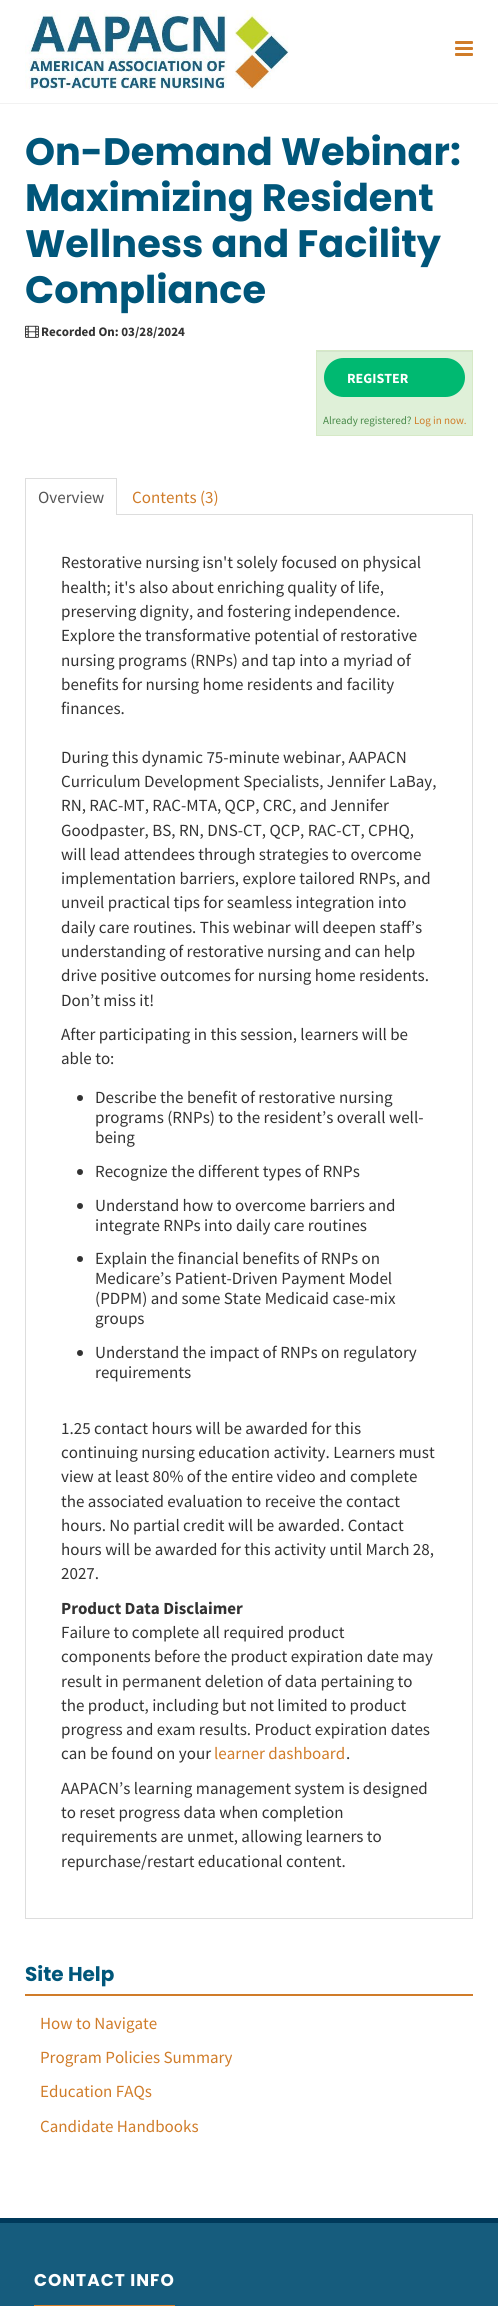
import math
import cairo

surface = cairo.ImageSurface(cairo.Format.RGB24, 498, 2306)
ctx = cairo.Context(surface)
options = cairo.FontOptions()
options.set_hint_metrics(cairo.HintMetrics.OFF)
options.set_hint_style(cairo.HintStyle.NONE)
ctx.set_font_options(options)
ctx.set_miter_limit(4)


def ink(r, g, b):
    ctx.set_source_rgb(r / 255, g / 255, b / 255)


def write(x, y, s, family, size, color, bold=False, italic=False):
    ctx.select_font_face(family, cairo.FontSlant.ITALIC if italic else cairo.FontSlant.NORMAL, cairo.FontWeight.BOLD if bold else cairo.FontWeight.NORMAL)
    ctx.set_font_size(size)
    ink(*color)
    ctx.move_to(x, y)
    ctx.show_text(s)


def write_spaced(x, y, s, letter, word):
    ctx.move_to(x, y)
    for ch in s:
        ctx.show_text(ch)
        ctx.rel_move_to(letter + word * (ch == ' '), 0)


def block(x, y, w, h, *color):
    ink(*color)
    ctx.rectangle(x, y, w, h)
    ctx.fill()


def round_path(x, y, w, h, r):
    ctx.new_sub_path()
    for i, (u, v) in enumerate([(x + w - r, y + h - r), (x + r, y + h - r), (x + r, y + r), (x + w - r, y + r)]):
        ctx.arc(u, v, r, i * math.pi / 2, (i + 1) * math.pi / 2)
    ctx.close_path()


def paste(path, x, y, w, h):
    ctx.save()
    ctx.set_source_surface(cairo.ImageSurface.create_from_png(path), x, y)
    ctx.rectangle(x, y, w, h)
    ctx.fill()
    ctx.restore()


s1 = dict(family="Poppins", size=38.25, color=(0, 86, 122), bold=True)
s2 = dict(family="Source Sans Pro", size=13, color=(51, 51, 51), bold=True)
s3 = dict(family="Source Sans Pro", size=14, color=(255, 255, 255), bold=True)
s4 = dict(family="Source Sans Pro", size=11, color=(70, 136, 71))
s5 = dict(family="Source Sans Pro", size=11, color=(208, 124, 41))
s6 = dict(family="Source Sans Pro", size=17, color=(85, 85, 85))
s7 = dict(family="Source Sans Pro", size=17, color=(208, 124, 41))
s8 = dict(family="Source Sans Pro", size=17, color=(51, 51, 51))
s9 = dict(family="Source Sans Pro", size=17, color=(51, 51, 51), bold=True)
s10 = dict(family="Poppins", size=20, color=(0, 86, 122), bold=True)

ink(255, 255, 255)
ctx.paint()
block(0, 103, 498, 1, 242, 242, 242)
paste("pic1.png", 25, 10, 264, 79)
ink(208, 124, 41)
round_path(455, 41, 18, 3, 1)
ctx.fill()
round_path(455, 47, 18, 3, 1)
ctx.fill()
round_path(455, 53, 18, 3, 1)
ctx.fill()
write(25, 165, "On-Demand Webinar:", **s1)
write(25, 211, "Maximizing Resident", **s1)
write(25, 257, "Wellness and Facility", **s1)
write(25, 303, "Compliance", **s1)
paste("pic2.png", 25, 325, 14, 13)
write(41, 336, "Recorded On: 03/28/2024", **s2)
block(317, 352, 155, 83, 223, 240, 216)
block(317, 351, 155, 1, 212, 228, 205)
ctx.rectangle(316.5, 350.5, 156, 85)
ink(214, 233, 198)
ctx.set_line_width(1)
ctx.stroke()
ink(0, 185, 113)
round_path(324, 358, 141, 39, 19.5)
ctx.fill()
write(347, 383, "REGISTER", **s3)
write(323, 424, "Already registered?", **s4)
write(414, 424, "Log in now.", **s5)
ctx.rectangle(25.5, 514.5, 447, 1404)
ink(221, 221, 221)
ctx.stroke()
block(26, 514, 90, 1, 255, 255, 255)
block(25, 478, 92, 1, 221, 221, 221)
block(116, 478, 1, 37, 221, 221, 221)
block(25, 478, 1, 37, 221, 221, 221)
write(38, 503, "Overview", **s6)
write(132, 503, "Contents (3)", **s7)
write(61, 568, "Restorative nursing isn't solely focused on physical", **s8)
write(61, 593, "health; it's also about enriching quality of life,", **s8)
write(61, 617, "preserving dignity, and fostering independence.", **s8)
write(61, 641, "Explore the transformative potential of restorative", **s8)
write(61, 666, "nursing programs (RNPs) and tap into a myriad of", **s8)
write(61, 690, "benefits for nursing home residents and facility", **s8)
write(61, 714, "finances.", **s8)
write(61, 763, "During this dynamic 75-minute webinar, AAPACN", **s8)
write(61, 787, "Curriculum Development Specialists, Jennifer LaBay,", **s8)
write(61, 811, "RN, RAC-MT, RAC-MTA, QCP, CRC, and Jennifer", **s8)
write(61, 836, "Goodpaster, BS, RN, DNS-CT, QCP, RAC-CT, CPHQ,", **s8)
write(61, 860, "will lead attendees through strategies to overcome", **s8)
write(61, 884, "implementation barriers, explore tailored RNPs, and", **s8)
write(61, 908, "unveil practical tips for seamless integration into", **s8)
write(61, 933, "daily care routines. This webinar will deepen staff’s", **s8)
write(61, 957, "understanding of restorative nursing and can help", **s8)
write(61, 981, "drive positive outcomes for nursing home residents.", **s8)
write(61, 1006, "Don’t miss it!", **s8)
write(61, 1040, "After participating in this session, learners will be", **s8)
write(61, 1064, "able to:", **s8)
ctx.new_path()
ctx.arc(80, 1098, 3, 0, 2 * math.pi)
ctx.fill()
write(95, 1103, "Describe the benefit of restorative nursing", **s8)
write(95, 1123, "programs (RNPs) to the resident’s overall well-", **s8)
write(95, 1143, "being", **s8)
ctx.new_path()
ctx.arc(80, 1172, 3, 0, 2 * math.pi)
ctx.fill()
write(95, 1177, "Recognize the different types of RNPs", **s8)
ctx.new_path()
ctx.arc(80, 1206, 3, 0, 2 * math.pi)
ctx.fill()
write(95, 1211, "Understand how to overcome barriers and", **s8)
write(95, 1231, "integrate RNPs into daily care routines", **s8)
ctx.new_path()
ctx.arc(80, 1259, 3, 0, 2 * math.pi)
ctx.fill()
write(95, 1264, "Explain the financial benefits of RNPs on", **s8)
write(95, 1284, "Medicare’s Patient-Driven Payment Model", **s8)
write(95, 1304, "(PDPM) and some State Medicaid case-mix", **s8)
write(95, 1324, "groups", **s8)
ctx.new_path()
ctx.arc(80, 1353, 3, 0, 2 * math.pi)
ctx.fill()
write(95, 1358, "Understand the impact of RNPs on regulatory", **s8)
write(95, 1378, "requirements", **s8)
write(61, 1434, "1.25 contact hours will be awarded for this", **s8)
write(61, 1458, "continuing nursing education activity. Learners must", **s8)
write(61, 1482, "view at least 80% of the entire video and complete", **s8)
write(61, 1507, "the associated evaluation to receive the contact", **s8)
write(61, 1531, "hours. No partial credit will be awarded. Contact", **s8)
write(61, 1555, "hours will be awarded for this activity until March 28,", **s8)
write(61, 1579, "2027.", **s8)
write(61, 1614, "Product Data Disclaimer", **s9)
write(61, 1638, "Failure to complete all required product", **s8)
write(61, 1662, "components before the product expiration date may", **s8)
write(61, 1687, "result in permanent deletion of data pertaining to", **s8)
write(61, 1711, "the product, including but not limited to product", **s8)
write(61, 1735, "progress and exam results. Product expiration dates", **s8)
write(61, 1759, "can be found on your", **s8)
write(214, 1759, "learner dashboard", **s7)
write(346, 1759, ".", **s8)
write(61, 1794, "AAPACN’s learning management system is designed", **s8)
write(61, 1818, "to reset progress data when completion", **s8)
write(61, 1842, "requirements are unmet, allowing learners to", **s8)
write(61, 1867, "repurchase/restart educational content.", **s8)
block(25, 1994, 448, 2, 208, 124, 41)
write(25, 1981, "Site Help", **s10)
write(40, 2029, "How to Navigate", **s7)
write(40, 2063, "Program Policies Summary", **s7)
write(40, 2097, "Education FAQs", **s7)
write(40, 2132, "Candidate Handbooks", **s7)
block(0, 2223, 498, 83, 22, 92, 125)
block(0, 2218, 498, 5, 0, 57, 90)
ctx.select_font_face("Poppins", cairo.FontSlant.NORMAL, cairo.FontWeight.BOLD)
ink(255, 255, 255)
write_spaced(34, 2286, "CONTACT INFO", 1, 0)
block(34, 2305, 141, 1, 208, 124, 41)
surface.write_to_png("screenshot.png")
